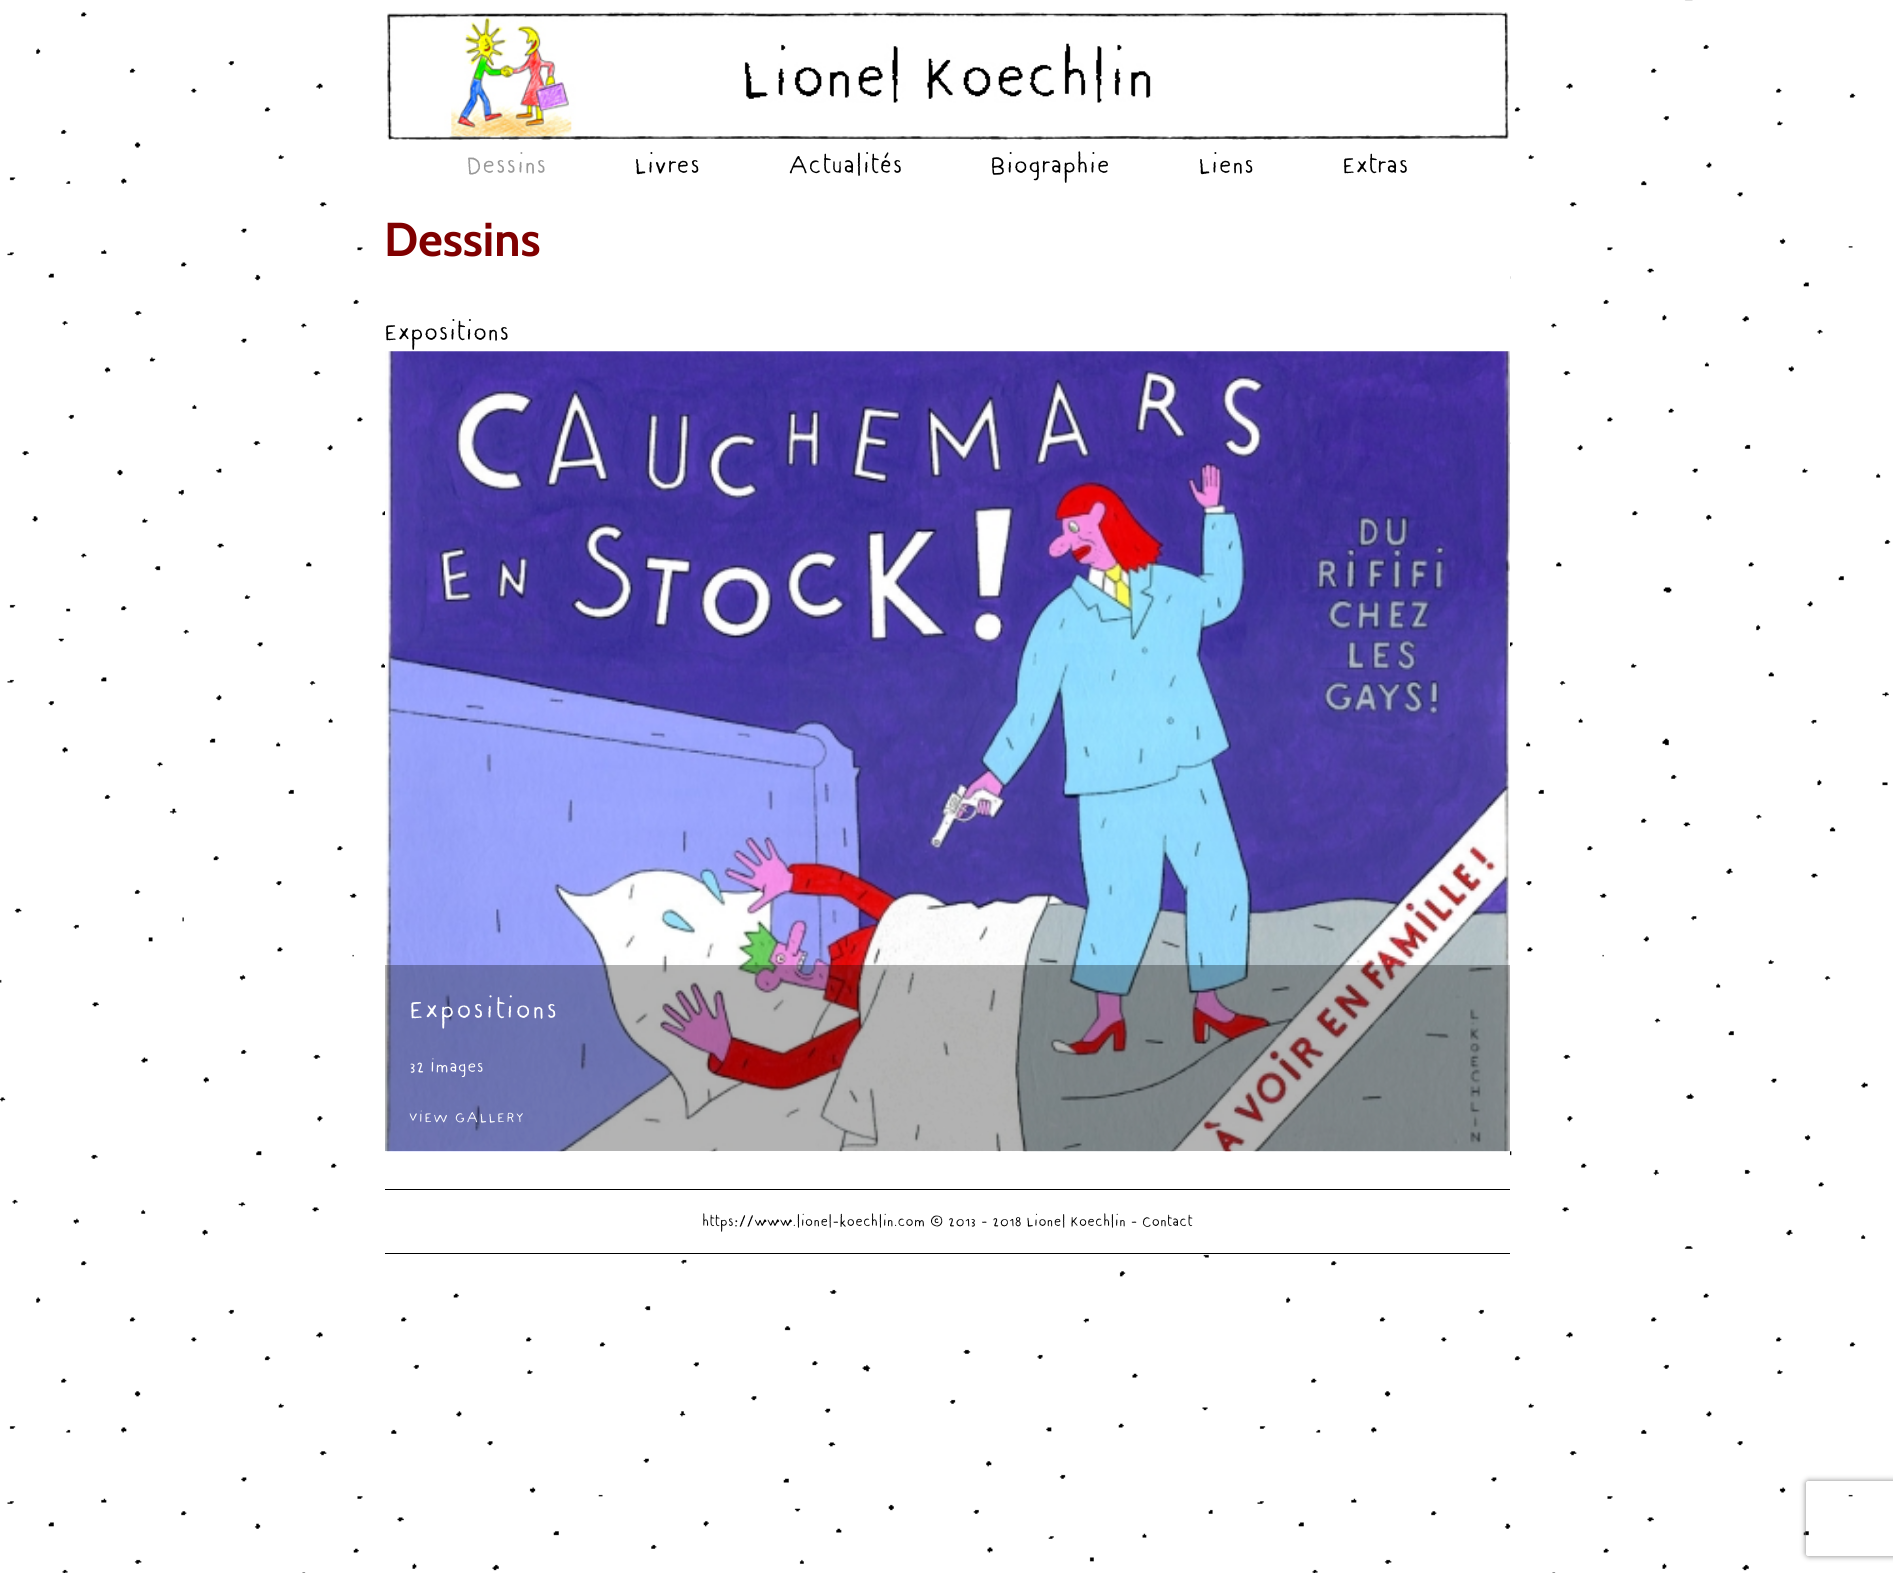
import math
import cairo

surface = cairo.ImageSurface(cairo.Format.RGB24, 1893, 1573)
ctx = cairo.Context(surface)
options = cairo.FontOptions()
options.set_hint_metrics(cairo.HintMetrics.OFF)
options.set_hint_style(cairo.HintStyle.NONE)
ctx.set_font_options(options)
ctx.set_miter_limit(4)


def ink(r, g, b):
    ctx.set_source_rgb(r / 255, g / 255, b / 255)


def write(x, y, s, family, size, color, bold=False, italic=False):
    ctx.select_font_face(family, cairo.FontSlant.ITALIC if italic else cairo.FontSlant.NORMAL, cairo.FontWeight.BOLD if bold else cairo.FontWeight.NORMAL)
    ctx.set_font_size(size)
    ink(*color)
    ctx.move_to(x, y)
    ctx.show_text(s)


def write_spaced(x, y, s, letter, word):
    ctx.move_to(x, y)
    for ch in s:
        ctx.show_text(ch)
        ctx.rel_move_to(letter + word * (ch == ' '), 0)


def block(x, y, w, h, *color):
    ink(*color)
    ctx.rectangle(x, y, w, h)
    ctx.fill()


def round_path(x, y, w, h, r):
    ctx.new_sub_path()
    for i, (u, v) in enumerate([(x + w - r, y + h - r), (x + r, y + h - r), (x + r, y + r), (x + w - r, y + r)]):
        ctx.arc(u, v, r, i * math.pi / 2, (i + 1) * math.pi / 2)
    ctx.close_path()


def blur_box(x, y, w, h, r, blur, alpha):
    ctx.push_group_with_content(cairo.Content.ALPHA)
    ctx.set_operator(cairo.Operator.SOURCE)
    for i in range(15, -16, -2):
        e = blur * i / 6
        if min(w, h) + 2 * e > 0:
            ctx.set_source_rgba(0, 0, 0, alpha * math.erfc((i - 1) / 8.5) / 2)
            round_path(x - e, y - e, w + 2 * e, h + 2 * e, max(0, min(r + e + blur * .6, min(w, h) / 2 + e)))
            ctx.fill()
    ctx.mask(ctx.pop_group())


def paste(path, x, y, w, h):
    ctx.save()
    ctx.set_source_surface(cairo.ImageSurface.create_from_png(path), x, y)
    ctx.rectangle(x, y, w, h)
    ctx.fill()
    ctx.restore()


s1 = dict(family="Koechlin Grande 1", size=30, color=(153, 153, 153))
s2 = dict(family="Koechlin Grande 1", size=30, color=(0, 0, 0))
s3 = dict(family="Cabin", size=47.5, color=(128, 0, 0), bold=True)
s4 = dict(family="Koechlin Grande 1", size=21, color=(255, 255, 255))
s5 = dict(family="Koechlin Grande 1", size=17.5, color=(0, 0, 0))

ink(255, 255, 255)
ctx.paint()
paste("pic1.png", 0, 0, 1891, 1573)
block(385, 0, 1125, 1252, 255, 255, 255)
paste("pic2.png", 385, 12, 1125, 128)
write(466, 173, "Dessins", **s1)
write(634, 173, "Livres", **s2)
write(788, 173, "Actualités", **s2)
write(990, 173, "Biographie", **s2)
write(1198, 173, "Liens", **s2)
write(1342, 173, "Extras", **s2)
write(384, 256, "Dessins", **s3)
write(384, 340, "Expositions", **s2)
paste("pic3.png", 385, 351, 1125, 801)
ctx.set_source_rgba(0, 0, 0, 0.3)
ctx.rectangle(385, 965, 1125, 186)
ctx.fill()
ctx.set_font_size(32.5)
ink(255, 255, 255)
write_spaced(409, 1018, "Expositions", 1.25, 0)
write(409, 1072, "32 Images", **s4)
ctx.set_font_size(17.5)
write_spaced(409, 1122, "VIEW GALLERY", 1.25, 0)
block(385, 1189, 1125, 1, 0, 0, 0)
block(385, 1253, 1125, 1, 0, 0, 0)
write(702, 1226, "https://www.lionel-koechlin.com © 2013 - 2018 Lionel Koechlin - Contact", **s5)
ctx.save()
ctx.set_fill_rule(cairo.FillRule.EVEN_ODD)
ctx.new_path()
ctx.move_to(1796, 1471)
ctx.line_to(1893, 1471)
ctx.line_to(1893, 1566)
ctx.line_to(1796, 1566)
ctx.close_path()
ctx.move_to(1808.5, 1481)
ctx.line_to(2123.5, 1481)
ctx.curve_to(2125, 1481, 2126, 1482, 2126, 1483.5)
ctx.line_to(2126, 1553.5)
ctx.curve_to(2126, 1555, 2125, 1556, 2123.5, 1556)
ctx.line_to(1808.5, 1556)
ctx.curve_to(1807, 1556, 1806, 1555, 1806, 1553.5)
ctx.line_to(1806, 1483.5)
ctx.curve_to(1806, 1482, 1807, 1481, 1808.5, 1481)
ctx.close_path()
ctx.clip()
ink(128, 128, 128)
blur_box(1806, 1481, 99, 75, 2.5, 3, 1)
ctx.restore()
surface.write_to_png("screenshot.png")
